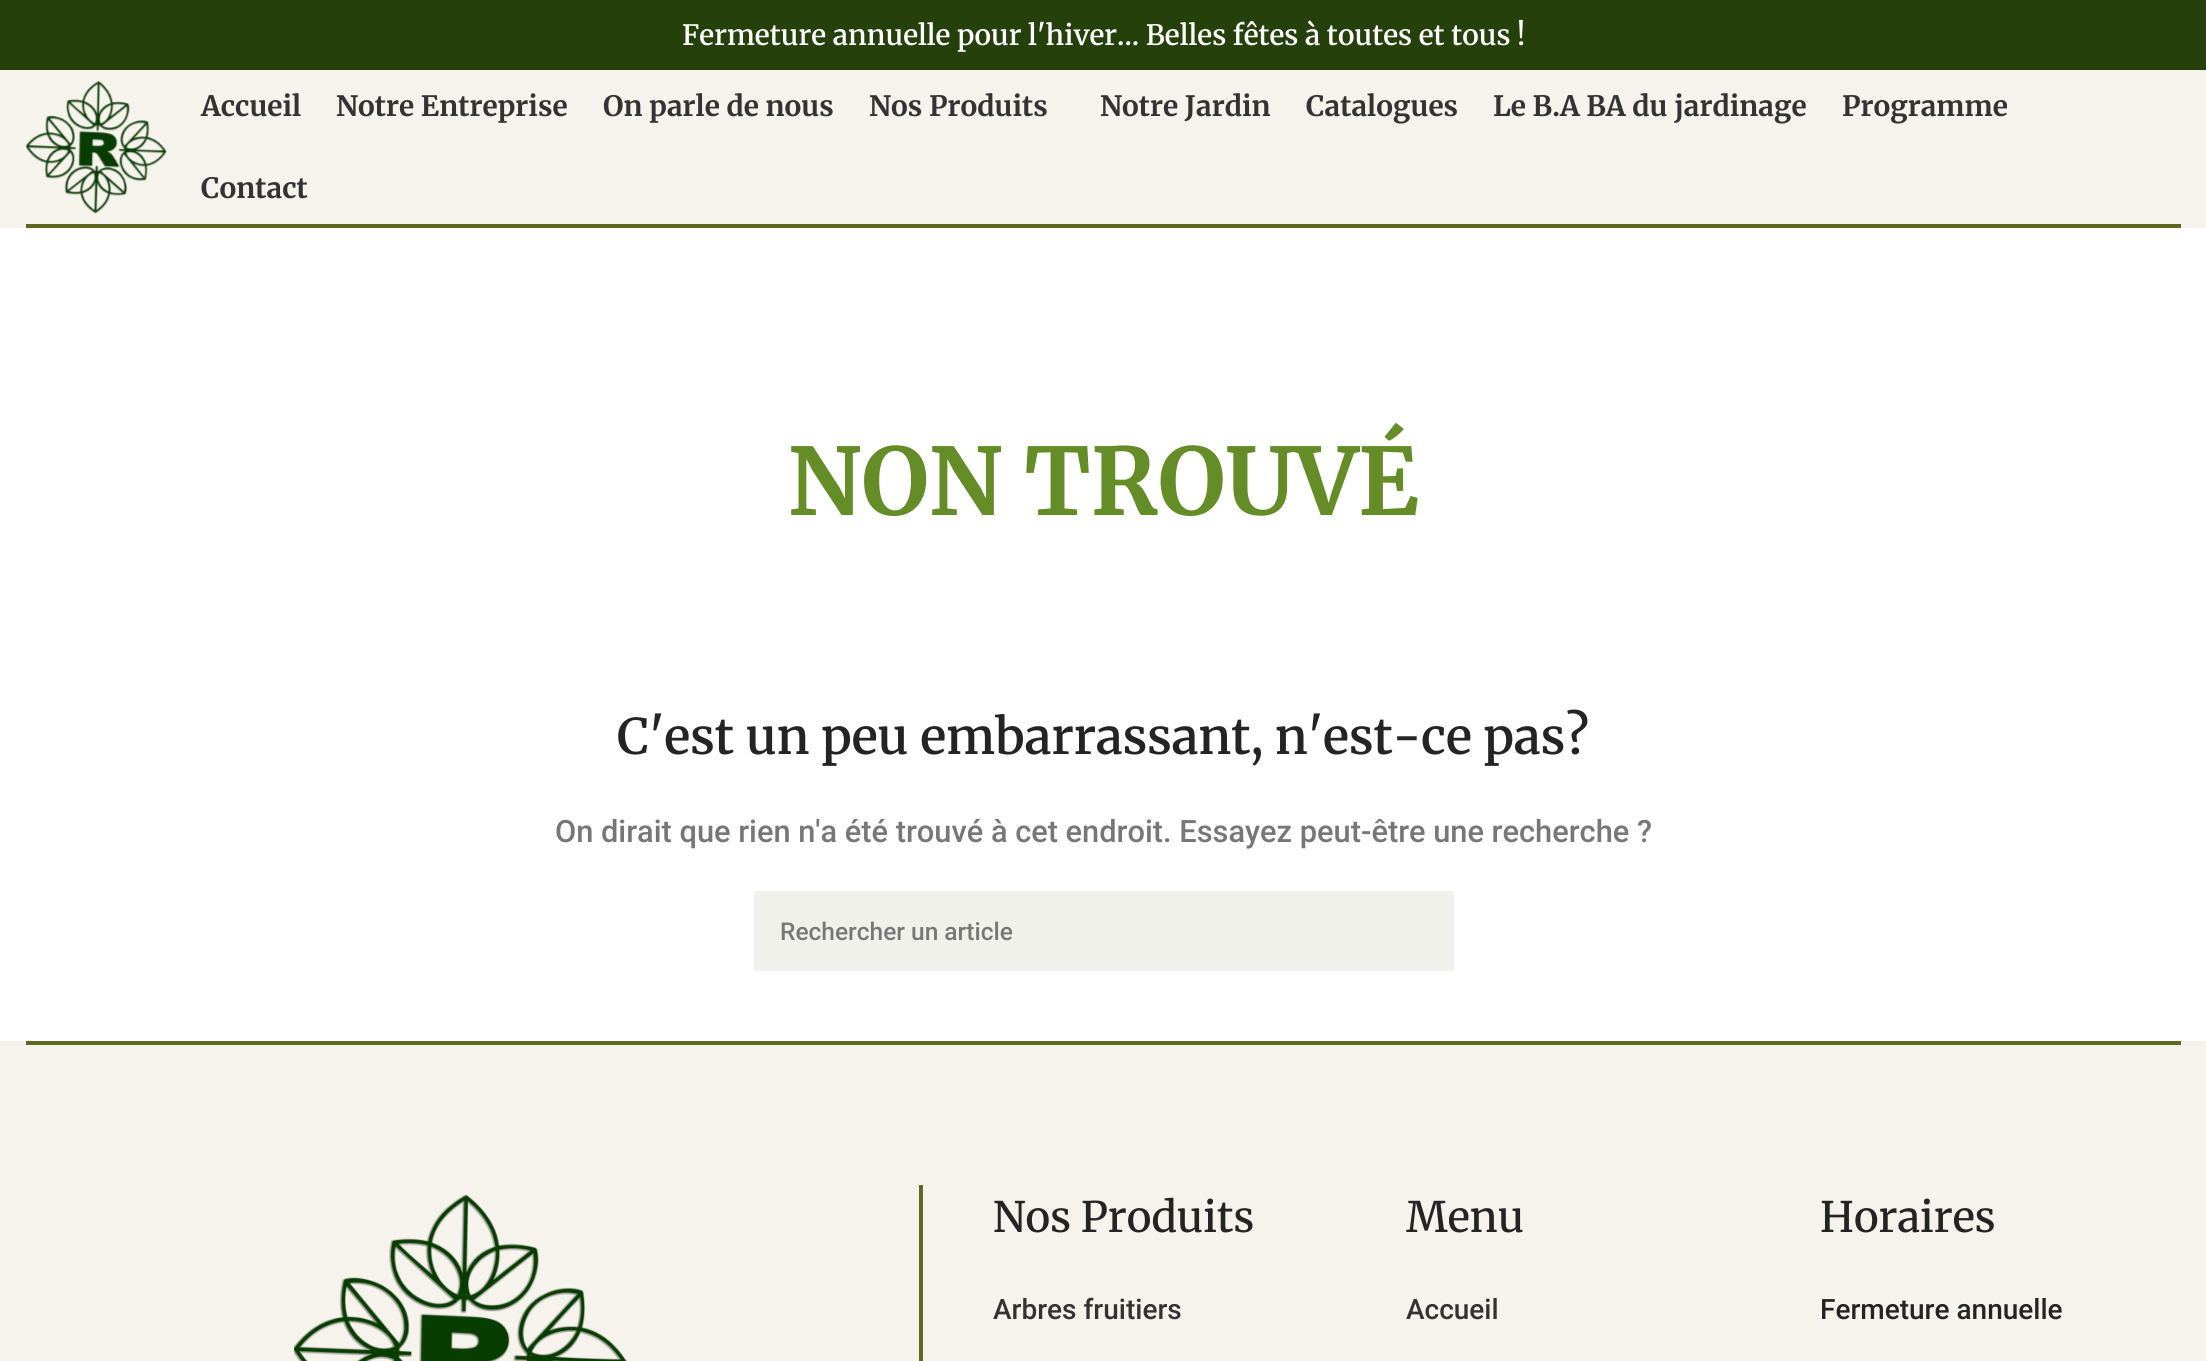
import math
import cairo

surface = cairo.ImageSurface(cairo.Format.RGB24, 2206, 1361)
ctx = cairo.Context(surface)
options = cairo.FontOptions()
options.set_hint_metrics(cairo.HintMetrics.OFF)
options.set_hint_style(cairo.HintStyle.NONE)
ctx.set_font_options(options)
ctx.set_miter_limit(4)


def ink(r, g, b):
    ctx.set_source_rgb(r / 255, g / 255, b / 255)


def write(x, y, s, family, size, color, bold=False, italic=False):
    ctx.select_font_face(family, cairo.FontSlant.ITALIC if italic else cairo.FontSlant.NORMAL, cairo.FontWeight.BOLD if bold else cairo.FontWeight.NORMAL)
    ctx.set_font_size(size)
    ink(*color)
    ctx.move_to(x, y)
    ctx.show_text(s)


def block(x, y, w, h, *color):
    ink(*color)
    ctx.rectangle(x, y, w, h)
    ctx.fill()


def paste(path, x, y, w, h):
    ctx.save()
    ctx.set_source_surface(cairo.ImageSurface.create_from_png(path), x, y)
    ctx.rectangle(x, y, w, h)
    ctx.fill()
    ctx.restore()


s1 = dict(family="Merriweather SemiBold", size=28, color=(255, 255, 255))
s2 = dict(family="Merriweather", size=28, color=(51, 51, 51), bold=True)
s3 = dict(family="Merriweather", size=92.75, color=(100, 140, 39), bold=True)
s4 = dict(family="Merriweather SemiBold", size=49, color=(36, 36, 36))
s5 = dict(family="Roboto Medium", size=30.8, color=(119, 119, 119))
s6 = dict(family="Roboto Medium", size=24.5, color=(119, 119, 119))
s7 = dict(family="Merriweather Medium", size=42, color=(36, 36, 36))
s8 = dict(family="Roboto Medium", size=28, color=(51, 51, 51))
s9 = dict(family="Roboto Medium", size=28, color=(36, 36, 36))

ink(255, 255, 255)
ctx.paint()
block(0, 0, 2206, 70, 38, 64, 12)
write(682, 45, "Fermeture annuelle pour l'hiver... Belles fêtes à toutes et tous !", **s1)
block(0, 70, 2206, 158, 246, 243, 237)
block(26, 224, 2155, 4, 94, 104, 33)
paste("pic1.png", 26, 81, 141, 133)
write(201, 116, "Accueil", **s2)
write(336, 116, "Notre Entreprise", **s2)
write(603, 116, "On parle de nous", **s2)
write(869, 116, "Nos Produits", **s2)
write(1100, 116, "Notre Jardin", **s2)
write(1306, 116, "Catalogues", **s2)
write(1493, 116, "Le B.A BA du jardinage", **s2)
write(1842, 116, "Programme", **s2)
write(201, 198, "Contact", **s2)
write(788, 515, "NON TROUVÉ", **s3)
write(617, 754, "C'est un peu embarrassant, n'est-ce pas?", **s4)
write(555, 842, "On dirait que rien n'a été trouvé à cet endroit. Essayez peut-être une recherche ?", **s5)
block(754, 891, 700, 80, 241, 241, 235)
write(780, 940, "Rechercher un article", **s6)
block(0, 1041, 2206, 320, 246, 243, 237)
block(26, 1041, 2155, 4, 94, 104, 33)
block(919, 1185, 4, 176, 94, 104, 33)
paste("pic2.png", 294, 1194, 333, 167)
write(993, 1232, "Nos Produits", **s7)
write(993, 1319, "Arbres fruitiers", **s8)
write(1406, 1232, "Menu", **s7)
write(1406, 1319, "Accueil", **s8)
write(1820, 1232, "Horaires", **s7)
write(1820, 1319, "Fermeture annuelle", **s9)
surface.write_to_png("screenshot.png")
